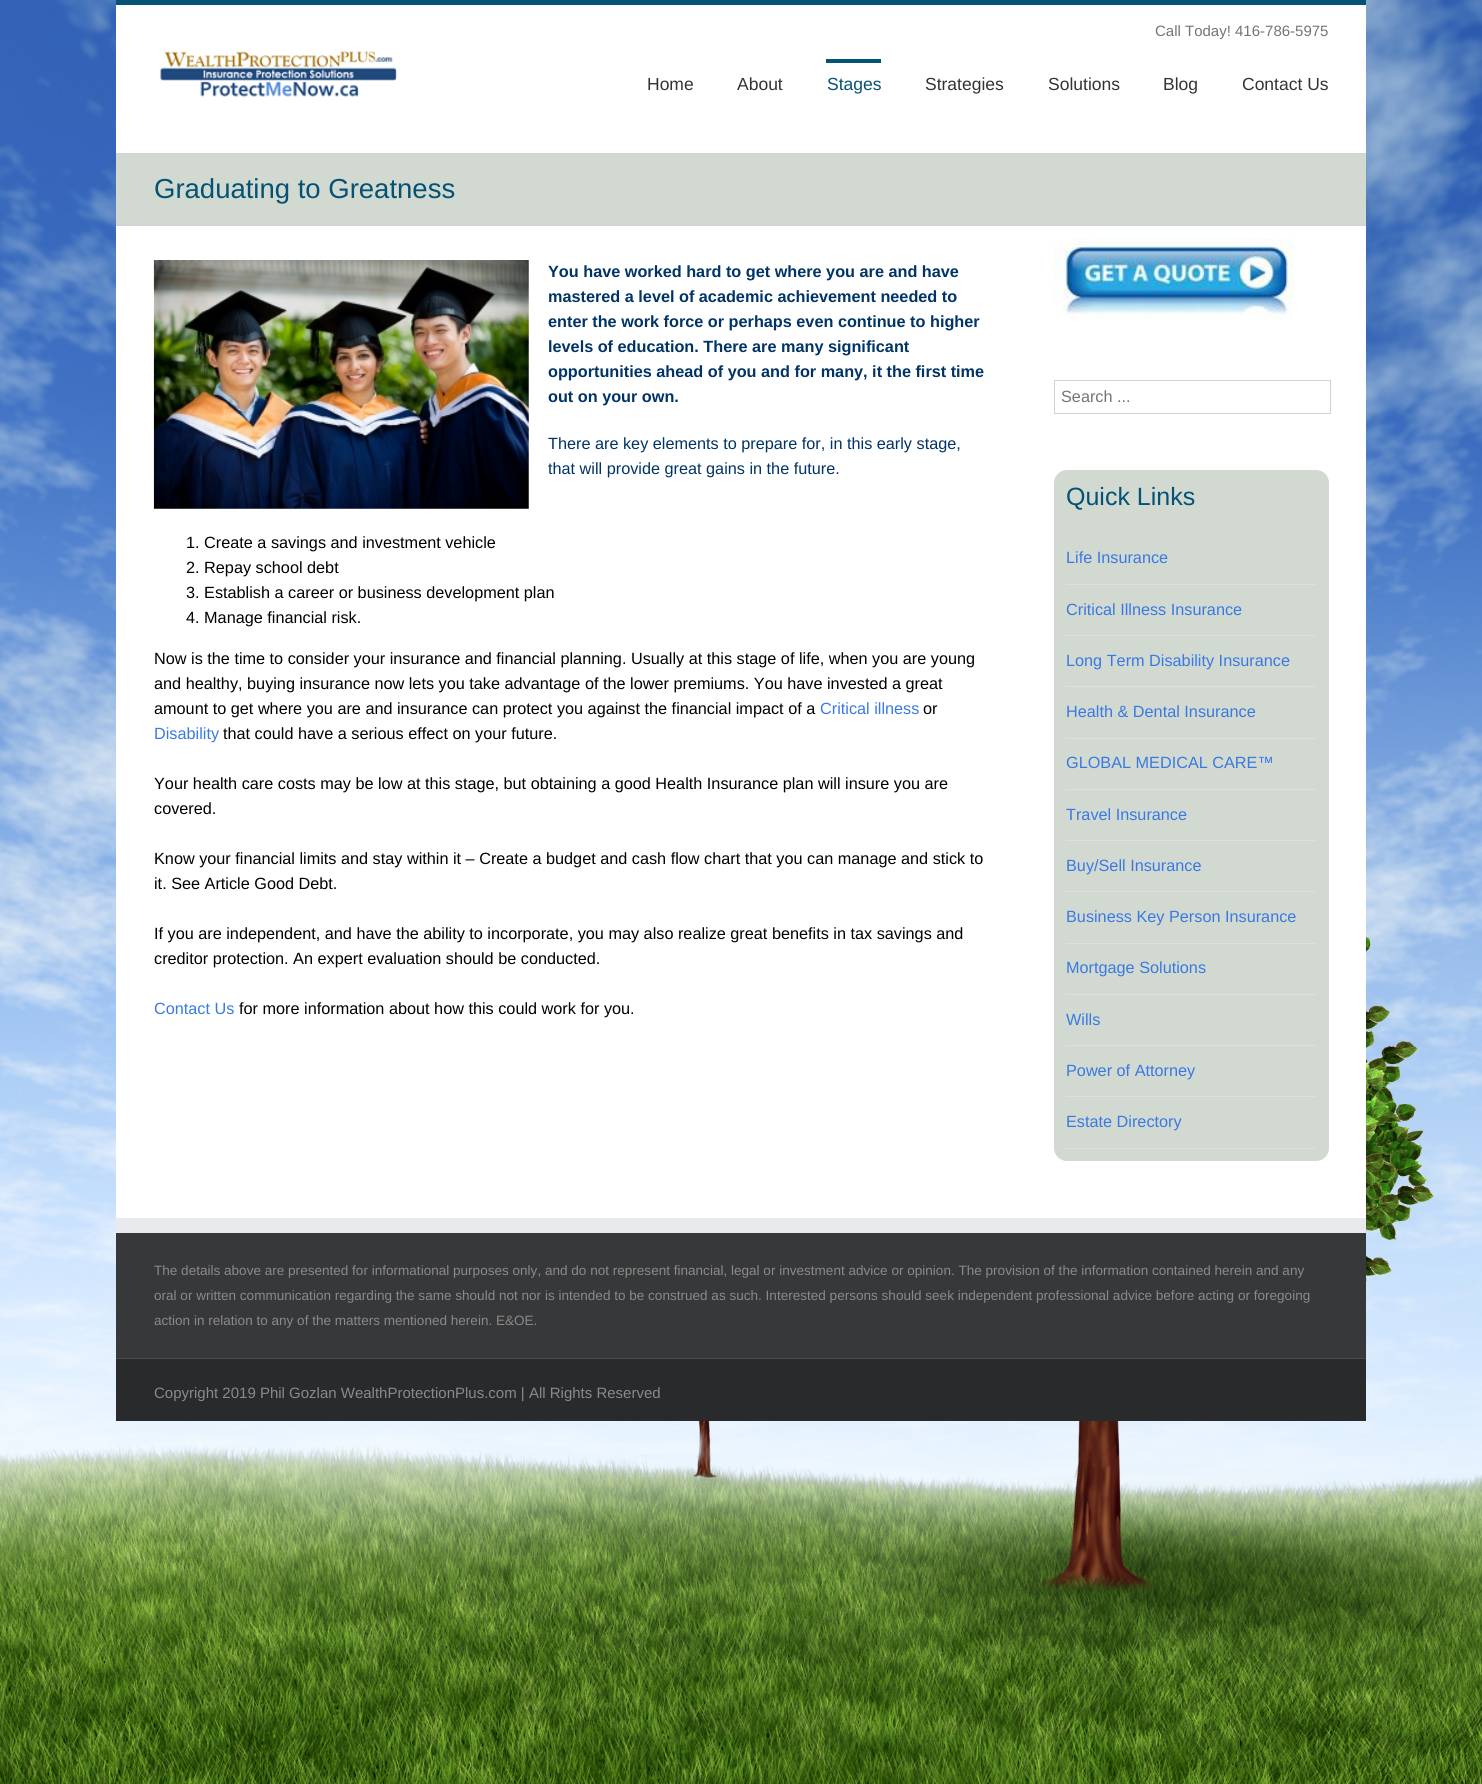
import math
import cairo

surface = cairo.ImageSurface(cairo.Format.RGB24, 1482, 1784)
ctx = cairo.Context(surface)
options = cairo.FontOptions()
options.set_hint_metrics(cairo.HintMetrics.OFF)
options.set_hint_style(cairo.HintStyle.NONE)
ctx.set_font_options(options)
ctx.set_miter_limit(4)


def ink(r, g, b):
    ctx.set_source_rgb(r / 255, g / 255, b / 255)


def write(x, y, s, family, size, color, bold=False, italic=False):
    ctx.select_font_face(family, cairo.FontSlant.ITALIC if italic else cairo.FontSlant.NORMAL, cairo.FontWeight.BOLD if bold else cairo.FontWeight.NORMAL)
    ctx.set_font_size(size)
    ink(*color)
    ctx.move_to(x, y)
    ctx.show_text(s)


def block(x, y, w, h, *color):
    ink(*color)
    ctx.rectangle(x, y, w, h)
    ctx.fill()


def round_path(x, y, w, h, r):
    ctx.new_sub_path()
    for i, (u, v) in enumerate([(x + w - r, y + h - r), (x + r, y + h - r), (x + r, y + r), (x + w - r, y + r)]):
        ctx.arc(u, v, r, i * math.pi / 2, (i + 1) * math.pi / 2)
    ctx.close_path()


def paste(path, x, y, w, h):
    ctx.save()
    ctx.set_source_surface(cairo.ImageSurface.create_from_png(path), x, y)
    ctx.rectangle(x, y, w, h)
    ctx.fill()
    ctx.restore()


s1 = dict(family="Liberation Sans", size=15, color=(116, 116, 116))
s2 = dict(family="Liberation Sans", size=17.5, color=(51, 51, 51))
s3 = dict(family="Liberation Sans", size=17.5, color=(4, 82, 116))
s4 = dict(family="Liberation Sans", size=27.5, color=(4, 82, 116))
s5 = dict(family="Liberation Sans", size=16.25, color=(0, 51, 102), bold=True)
s6 = dict(family="Liberation Sans", size=16.25, color=(0, 51, 102))
s7 = dict(family="Liberation Sans", size=16.25, color=(0, 0, 0))
s8 = dict(family="Liberation Sans", size=16.25, color=(57, 121, 227))
s9 = dict(family="Liberation Sans", size=16.25, color=(116, 116, 116))
s10 = dict(family="Liberation Sans", size=25, color=(4, 82, 116))
s11 = dict(family="Liberation Sans", size=13.55, color=(140, 137, 137))
s12 = dict(family="Liberation Sans", size=15, color=(140, 137, 137))

ink(255, 255, 255)
ctx.paint()
paste("pic1.png", 0, 0, 1482, 1784)
block(116, 5, 1250, 1213, 255, 255, 255)
block(116, 0, 1250, 5, 4, 82, 116)
write(1155, 36, "Call Today! 416-786-5975", **s1)
paste("pic2.png", 160, 51, 238, 46)
write(647, 90, "Home", **s2)
write(737, 90, "About", **s2)
block(826, 59, 55, 4, 4, 82, 116)
write(827, 90, "Stages", **s3)
write(925, 90, "Strategies", **s2)
write(1048, 90, "Solutions", **s2)
write(1163, 90, "Blog", **s2)
write(1242, 90, "Contact Us", **s2)
block(116, 154, 1250, 71, 210, 217, 209)
block(116, 153, 1250, 1, 210, 211, 212)
block(116, 225, 1250, 1, 210, 211, 212)
write(154, 198, "Graduating to Greatness", **s4)
paste("pic3.png", 153, 260, 376, 249)
write(548, 277, "You have worked hard to get where you are and have", **s5)
write(548, 302, "mastered a level of academic achievement needed to", **s5)
write(548, 327, "enter the work force or perhaps even continue to higher", **s5)
write(548, 352, "levels of education. There are many significant", **s5)
write(548, 377, "opportunities ahead of you and for many, it the first time", **s5)
write(548, 402, "out on your own.", **s5)
write(548, 449, "There are key elements to prepare for, in this early stage,", **s6)
write(548, 474, "that will provide great gains in the future.", **s6)
write(186, 548, "1. Create a savings and investment vehicle", **s7)
write(186, 573, "2. Repay school debt", **s7)
write(186, 598, "3. Establish a career or business development plan", **s7)
write(186, 623, "4. Manage financial risk.", **s7)
write(154, 664, "Now is the time to consider your insurance and financial planning. Usually at this stage of life, when you are young", **s7)
write(154, 689, "and healthy, buying insurance now lets you take advantage of the lower premiums. You have invested a great", **s7)
write(154, 714, "amount to get where you are and insurance can protect you against the financial impact of a", **s7)
write(820, 714, "Critical illness", **s8)
write(923, 714, "or", **s7)
write(154, 739, "Disability", **s8)
write(223, 739, "that could have a serious effect on your future.", **s7)
write(154, 789, "Your health care costs may be low at this stage, but obtaining a good Health Insurance plan will insure you are", **s7)
write(154, 814, "covered.", **s7)
write(154, 864, "Know your financial limits and stay within it – Create a budget and cash flow chart that you can manage and stick to", **s7)
write(154, 889, "it. See Article Good Debt.", **s7)
write(154, 939, "If you are independent, and have the ability to incorporate, you may also realize great benefits in tax savings and", **s7)
write(154, 964, "creditor protection. An expert evaluation should be conducted.", **s7)
write(154, 1014, "Contact Us", **s8)
write(239, 1014, "for more information about how this could work for you.", **s7)
paste("pic4.png", 1053, 239, 242, 80)
ctx.rectangle(1054.5, 380.5, 276, 33)
ink(210, 210, 210)
ctx.set_line_width(1)
ctx.stroke()
write(1061, 402, "Search ...", **s9)
ink(210, 217, 209)
round_path(1054, 470, 275, 691, 13)
ctx.fill()
write(1066, 505, "Quick Links", **s10)
block(1066, 584, 250, 1, 224, 222, 222)
write(1066, 563, "Life Insurance", **s8)
block(1066, 635, 250, 1, 224, 222, 222)
write(1066, 615, "Critical Illness Insurance", **s8)
block(1066, 686, 250, 1, 224, 222, 222)
write(1066, 666, "Long Term Disability Insurance", **s8)
block(1066, 738, 250, 1, 224, 222, 222)
write(1066, 717, "Health & Dental Insurance", **s8)
block(1066, 789, 250, 1, 224, 222, 222)
write(1066, 768, "GLOBAL MEDICAL CARE™", **s8)
block(1066, 840, 250, 1, 224, 222, 222)
write(1066, 820, "Travel Insurance", **s8)
block(1066, 891, 250, 1, 224, 222, 222)
write(1066, 871, "Buy/Sell Insurance", **s8)
block(1066, 943, 250, 1, 224, 222, 222)
write(1066, 922, "Business Key Person Insurance", **s8)
block(1066, 994, 250, 1, 224, 222, 222)
write(1066, 973, "Mortgage Solutions", **s8)
block(1066, 1045, 250, 1, 224, 222, 222)
write(1066, 1025, "Wills", **s8)
block(1066, 1096, 250, 1, 224, 222, 222)
write(1066, 1076, "Power of Attorney", **s8)
block(1066, 1148, 250, 1, 224, 222, 222)
write(1066, 1127, "Estate Directory", **s8)
block(116, 1233, 1250, 125, 54, 56, 57)
block(116, 1218, 1250, 15, 233, 234, 238)
write(154, 1275, "The details above are presented for informational purposes only, and do not represent financial, legal or investment advice or opinion. The provision of the information contained herein and any", **s11)
write(154, 1300, "oral or written communication regarding the same should not nor is intended to be construed as such. Interested persons should seek independent professional advice before acting or foregoing", **s11)
write(154, 1325, "action in relation to any of the matters mentioned herein. E&OE.", **s11)
block(116, 1359, 1250, 62, 40, 42, 43)
block(116, 1358, 1250, 1, 75, 76, 77)
write(154, 1398, "Copyright 2019 Phil Gozlan WealthProtectionPlus.com | All Rights Reserved", **s12)
surface.write_to_png("screenshot.png")
